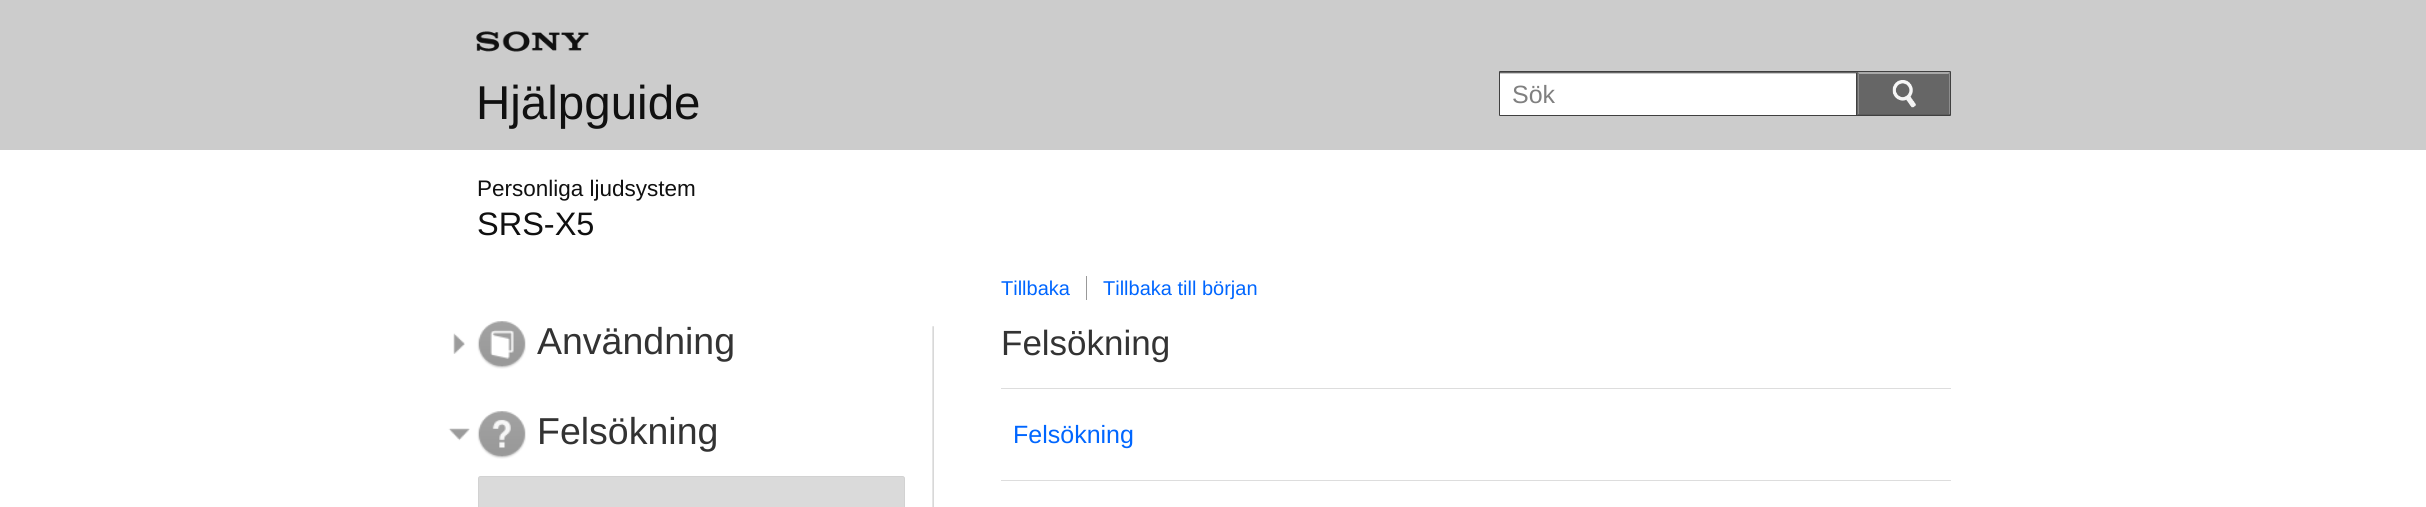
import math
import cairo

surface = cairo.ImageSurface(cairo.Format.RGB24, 2426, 507)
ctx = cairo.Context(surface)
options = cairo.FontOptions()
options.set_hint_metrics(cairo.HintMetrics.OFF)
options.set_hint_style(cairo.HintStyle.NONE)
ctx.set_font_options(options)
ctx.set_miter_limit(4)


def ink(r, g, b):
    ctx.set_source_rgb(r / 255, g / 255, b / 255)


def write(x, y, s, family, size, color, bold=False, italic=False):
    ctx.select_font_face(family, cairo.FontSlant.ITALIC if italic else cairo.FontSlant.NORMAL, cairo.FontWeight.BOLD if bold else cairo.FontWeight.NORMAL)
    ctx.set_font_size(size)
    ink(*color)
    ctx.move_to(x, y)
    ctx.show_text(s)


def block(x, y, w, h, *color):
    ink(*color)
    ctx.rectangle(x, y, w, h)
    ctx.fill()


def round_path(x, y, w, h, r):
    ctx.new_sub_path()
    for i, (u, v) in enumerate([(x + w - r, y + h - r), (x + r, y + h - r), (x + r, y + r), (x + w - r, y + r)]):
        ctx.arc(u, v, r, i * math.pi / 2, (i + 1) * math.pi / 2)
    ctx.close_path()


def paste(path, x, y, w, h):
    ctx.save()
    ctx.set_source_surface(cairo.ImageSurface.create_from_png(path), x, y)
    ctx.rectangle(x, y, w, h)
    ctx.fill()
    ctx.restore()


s1 = dict(family="Liberation Sans", size=47.5, color=(16, 16, 16))
s2 = dict(family="Liberation Sans", size=25, color=(128, 128, 128))
s3 = dict(family="Liberation Sans", size=22.5, color=(16, 16, 16))
s4 = dict(family="Liberation Sans", size=32.5, color=(16, 16, 16))
s5 = dict(family="Liberation Sans", size=37.5, color=(51, 51, 51))
s6 = dict(family="Liberation Sans", size=20, color=(0, 102, 255))
s7 = dict(family="Liberation Sans", size=35, color=(51, 51, 51))
s8 = dict(family="Liberation Sans", size=25, color=(0, 102, 255))

ink(255, 255, 255)
ctx.paint()
block(0, 0, 2426, 150, 204, 204, 204)
paste("pic1.png", 476, 31, 113, 21)
write(476, 119, "Hjälpguide", **s1)
ink(102, 102, 102)
round_path(1499.5, 71.5, 451, 44, 0.5)
ctx.fill_preserve()
ink(64, 64, 64)
ctx.set_line_width(1)
ctx.stroke()
block(1856, 73, 1, 42, 64, 64, 64)
block(1500, 74, 356, 41, 255, 255, 255)
block(1500, 73, 356, 1, 202, 202, 202)
write(1512, 103, "Sök", **s2)
ink(168, 168, 168)
ctx.new_path()
ctx.move_to(1859, 74)
ctx.line_to(1858, 72)
ctx.line_to(1949, 72)
ctx.line_to(1950, 73)
ctx.line_to(1948, 74)
ctx.close_path()
ctx.fill()
ink(141, 141, 141)
ctx.new_path()
ctx.move_to(1950, 114)
ctx.line_to(1950, 73)
ctx.line_to(1948, 74)
ctx.line_to(1949, 74)
ctx.line_to(1949, 114)
ctx.close_path()
ctx.fill()
ink(92, 92, 92)
ctx.new_path()
ctx.move_to(1858, 115)
ctx.line_to(1949, 115)
ctx.line_to(1950, 114)
ctx.line_to(1949, 114)
ctx.line_to(1859, 114)
ctx.close_path()
ctx.fill()
ink(141, 141, 141)
ctx.new_path()
ctx.move_to(1859, 74)
ctx.line_to(1859, 114)
ctx.line_to(1858, 114)
ctx.line_to(1858, 73)
ctx.close_path()
ctx.fill()
paste("pic2.png", 1892, 80, 24, 28)
write(477, 196, "Personliga ljudsystem", **s3)
write(477, 235, "SRS-X5", **s4)
paste("pic3.png", 932, 326, 2, 181)
paste("pic4.png", 453, 333, 12, 21)
paste("pic5.png", 477, 321, 49, 48)
write(537, 354, "Användning", **s5)
paste("pic6.png", 448, 428, 22, 13)
paste("pic7.png", 477, 411, 49, 48)
write(537, 444, "Felsökning", **s5)
ink(218, 218, 218)
round_path(478.5, 476.5, 426, 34, 2)
ctx.fill_preserve()
ink(210, 210, 210)
ctx.stroke()
write(1001, 295, "Tillbaka", **s6)
block(1086, 276, 1, 24, 153, 153, 153)
write(1103, 295, "Tillbaka till början", **s6)
block(1001, 388, 950, 1, 221, 221, 221)
write(1001, 355, "Felsökning", **s7)
block(1001, 480, 950, 1, 221, 221, 221)
write(1013, 443, "Felsökning", **s8)
surface.write_to_png("screenshot.png")
